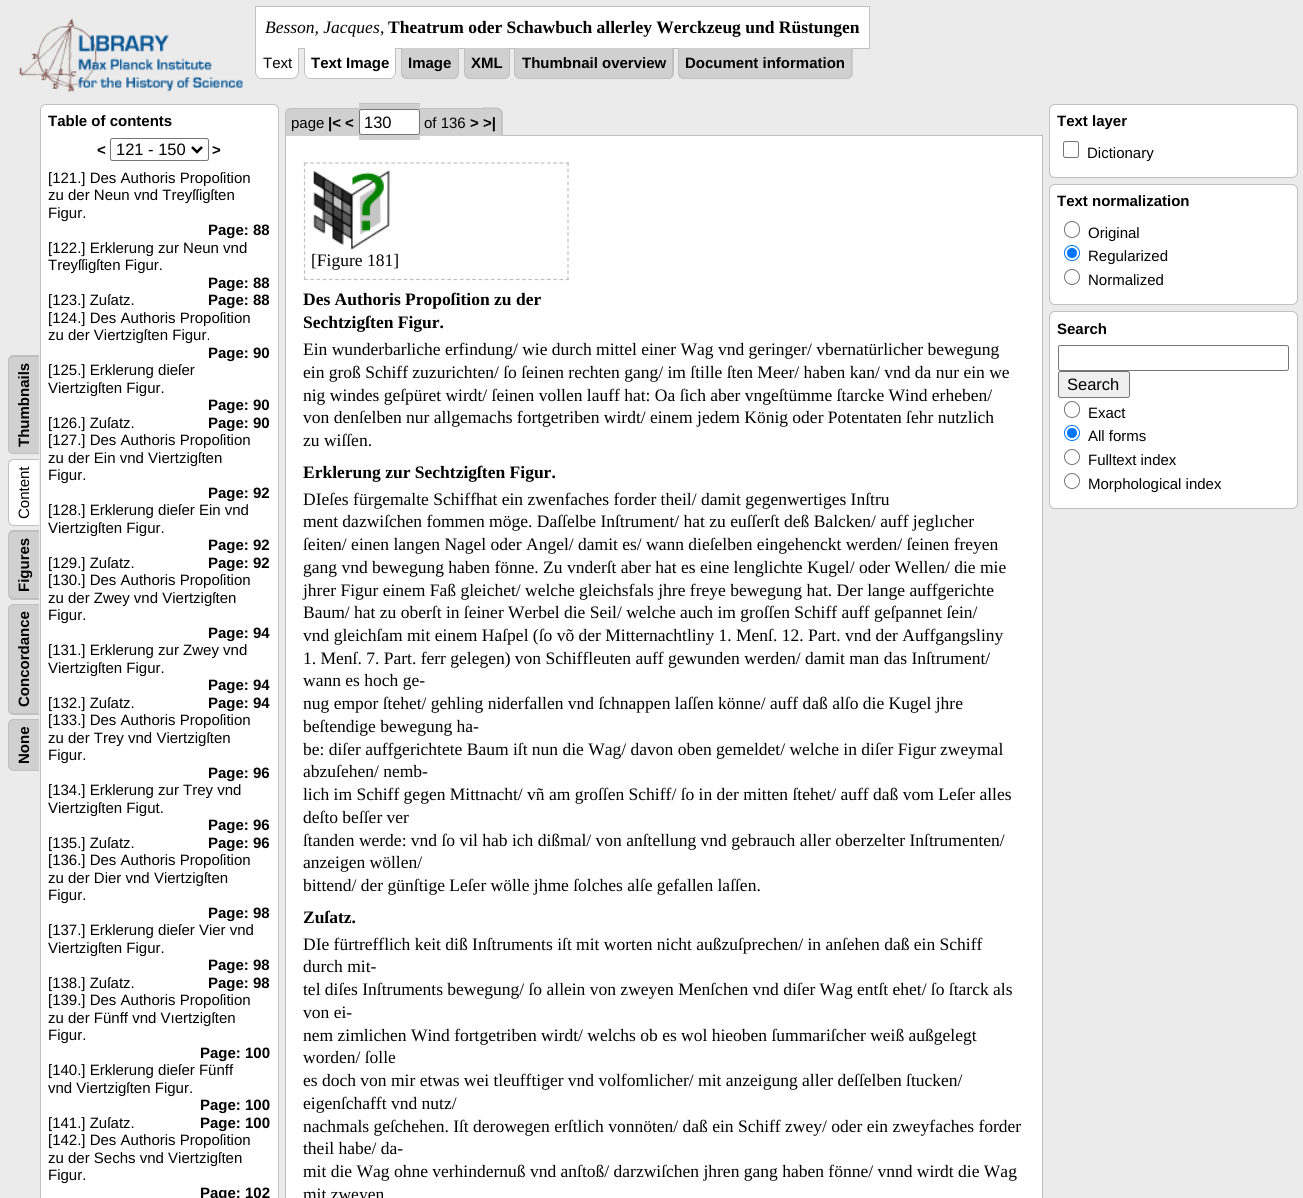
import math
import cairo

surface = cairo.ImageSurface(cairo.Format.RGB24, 1303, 1198)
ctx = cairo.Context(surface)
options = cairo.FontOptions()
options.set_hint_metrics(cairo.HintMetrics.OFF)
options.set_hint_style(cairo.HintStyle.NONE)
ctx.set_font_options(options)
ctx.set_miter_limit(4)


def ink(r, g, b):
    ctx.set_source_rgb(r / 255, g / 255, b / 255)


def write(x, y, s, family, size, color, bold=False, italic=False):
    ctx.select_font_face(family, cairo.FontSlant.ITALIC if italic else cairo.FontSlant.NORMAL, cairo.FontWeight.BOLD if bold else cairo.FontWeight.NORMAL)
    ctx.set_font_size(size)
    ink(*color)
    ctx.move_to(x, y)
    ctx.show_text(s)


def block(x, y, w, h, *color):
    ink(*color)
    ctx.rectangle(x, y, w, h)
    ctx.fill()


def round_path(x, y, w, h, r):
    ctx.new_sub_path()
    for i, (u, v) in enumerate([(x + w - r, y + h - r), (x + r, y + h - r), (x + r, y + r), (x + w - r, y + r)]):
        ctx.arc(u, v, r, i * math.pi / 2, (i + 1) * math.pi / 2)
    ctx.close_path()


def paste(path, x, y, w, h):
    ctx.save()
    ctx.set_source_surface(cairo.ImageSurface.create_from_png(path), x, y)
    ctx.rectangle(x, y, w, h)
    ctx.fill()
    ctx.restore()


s1 = dict(family="Liberation Serif", size=17.5, color=(0, 0, 0), italic=True)
s2 = dict(family="Liberation Serif", size=17.5, color=(0, 0, 0))
s3 = dict(family="Liberation Serif", size=17.5, color=(0, 0, 0), bold=True)
s4 = dict(family="Liberation Sans", size=15, color=(0, 0, 0))
s5 = dict(family="Liberation Sans", size=15, color=(0, 0, 0), bold=True)
s6 = dict(family="Liberation Sans", size=16.5, color=(0, 0, 0))

ink(235, 235, 235)
ctx.paint()
paste("pic1.png", 18, 18, 225, 74)
ink(255, 255, 255)
ctx.rectangle(255.5, 6.5, 614, 42)
ctx.fill_preserve()
ink(192, 192, 192)
ctx.set_line_width(1)
ctx.stroke()
write(265, 33, "Besson, Jacques", **s1)
write(380, 33, ",", **s2)
write(388, 33, "Theatrum oder Schawbuch allerley Werckzeug und Rüstungen", **s3)
ink(255, 255, 255)
ctx.new_path()
ctx.move_to(255, 48)
ctx.line_to(299, 48)
ctx.line_to(299, 73)
ctx.curve_to(299, 76.5, 296.5, 79, 293, 79)
ctx.line_to(261, 79)
ctx.curve_to(257.5, 79, 255, 76.5, 255, 73)
ctx.close_path()
ctx.fill()
ink(192, 192, 192)
ctx.set_fill_rule(cairo.FillRule.EVEN_ODD)
ctx.new_path()
ctx.move_to(255, 48)
ctx.line_to(299, 48)
ctx.line_to(299, 72)
ctx.curve_to(299, 76, 296, 79, 292, 79)
ctx.line_to(261, 79)
ctx.curve_to(258, 79, 255, 76, 255, 72)
ctx.close_path()
ctx.move_to(256, 48)
ctx.line_to(298, 48)
ctx.line_to(298, 72)
ctx.curve_to(298, 75, 295, 78, 292, 78)
ctx.line_to(261, 78)
ctx.curve_to(258, 78, 256, 75, 256, 72)
ctx.close_path()
ctx.fill()
write(263, 68, "Text", **s4)
ink(255, 255, 255)
ctx.new_path()
ctx.move_to(304, 48)
ctx.line_to(396, 48)
ctx.line_to(396, 73)
ctx.curve_to(396, 76.5, 393.5, 79, 390, 79)
ctx.line_to(310, 79)
ctx.curve_to(306.5, 79, 304, 76.5, 304, 73)
ctx.close_path()
ctx.fill()
ink(192, 192, 192)
ctx.new_path()
ctx.move_to(304, 48)
ctx.line_to(396, 48)
ctx.line_to(396, 72)
ctx.curve_to(396, 76, 393, 79, 390, 79)
ctx.line_to(310, 79)
ctx.curve_to(307, 79, 304, 76, 304, 72)
ctx.close_path()
ctx.move_to(305, 48)
ctx.line_to(395, 48)
ctx.line_to(395, 72)
ctx.curve_to(395, 75, 393, 78, 390, 78)
ctx.line_to(310, 78)
ctx.curve_to(307, 78, 305, 75, 305, 72)
ctx.close_path()
ctx.fill()
write(311, 68, "Text Image", **s5)
ink(208, 208, 208)
ctx.new_path()
ctx.move_to(401, 48)
ctx.line_to(459, 48)
ctx.line_to(459, 73)
ctx.curve_to(459, 76.5, 456.5, 79, 453, 79)
ctx.line_to(407, 79)
ctx.curve_to(403.5, 79, 401, 76.5, 401, 73)
ctx.close_path()
ctx.fill()
ink(192, 192, 192)
ctx.new_path()
ctx.move_to(401, 48)
ctx.line_to(459, 48)
ctx.line_to(459, 72)
ctx.curve_to(459, 76, 456, 79, 452, 79)
ctx.line_to(408, 79)
ctx.curve_to(404, 79, 401, 76, 401, 72)
ctx.close_path()
ctx.move_to(402, 48)
ctx.line_to(458, 48)
ctx.line_to(458, 72)
ctx.curve_to(458, 75, 455, 78, 452, 78)
ctx.line_to(408, 78)
ctx.curve_to(405, 78, 402, 75, 402, 72)
ctx.close_path()
ctx.fill()
write(408, 68, "Image", **s5)
ink(208, 208, 208)
ctx.new_path()
ctx.move_to(464, 48)
ctx.line_to(510, 48)
ctx.line_to(510, 73)
ctx.curve_to(510, 76.5, 507.5, 79, 504, 79)
ctx.line_to(470, 79)
ctx.curve_to(466.5, 79, 464, 76.5, 464, 73)
ctx.close_path()
ctx.fill()
ink(192, 192, 192)
ctx.new_path()
ctx.move_to(464, 48)
ctx.line_to(510, 48)
ctx.line_to(510, 72)
ctx.curve_to(510, 76, 507, 79, 504, 79)
ctx.line_to(470, 79)
ctx.curve_to(467, 79, 464, 76, 464, 72)
ctx.close_path()
ctx.move_to(465, 48)
ctx.line_to(509, 48)
ctx.line_to(509, 72)
ctx.curve_to(509, 75, 507, 78, 504, 78)
ctx.line_to(470, 78)
ctx.curve_to(467, 78, 465, 75, 465, 72)
ctx.close_path()
ctx.fill()
write(471, 68, "XML", **s5)
ink(208, 208, 208)
ctx.new_path()
ctx.move_to(514, 48)
ctx.line_to(674, 48)
ctx.line_to(674, 73)
ctx.curve_to(674, 76.5, 671.5, 79, 668, 79)
ctx.line_to(520, 79)
ctx.curve_to(516.5, 79, 514, 76.5, 514, 73)
ctx.close_path()
ctx.fill()
ink(192, 192, 192)
ctx.new_path()
ctx.move_to(514, 48)
ctx.line_to(674, 48)
ctx.line_to(674, 72)
ctx.curve_to(674, 76, 671, 79, 668, 79)
ctx.line_to(520, 79)
ctx.curve_to(517, 79, 514, 76, 514, 72)
ctx.close_path()
ctx.move_to(515, 48)
ctx.line_to(672, 48)
ctx.line_to(672, 72)
ctx.curve_to(672, 75, 670, 78, 668, 78)
ctx.line_to(520, 78)
ctx.curve_to(517, 78, 515, 75, 515, 72)
ctx.close_path()
ctx.fill()
write(522, 68, "Thumbnail overview", **s5)
ink(208, 208, 208)
ctx.new_path()
ctx.move_to(678, 48)
ctx.line_to(853, 48)
ctx.line_to(853, 73)
ctx.curve_to(853, 76.5, 850.5, 79, 847, 79)
ctx.line_to(684, 79)
ctx.curve_to(680.5, 79, 678, 76.5, 678, 73)
ctx.close_path()
ctx.fill()
ink(192, 192, 192)
ctx.new_path()
ctx.move_to(678, 48)
ctx.line_to(852, 48)
ctx.line_to(852, 72)
ctx.curve_to(852, 76, 850, 79, 846, 79)
ctx.line_to(684, 79)
ctx.curve_to(680, 79, 678, 76, 678, 72)
ctx.close_path()
ctx.move_to(679, 48)
ctx.line_to(851, 48)
ctx.line_to(851, 72)
ctx.curve_to(851, 75, 849, 78, 846, 78)
ctx.line_to(684, 78)
ctx.curve_to(681, 78, 679, 75, 679, 72)
ctx.close_path()
ctx.fill()
write(685, 68, "Document information", **s5)
ink(208, 208, 208)
ctx.set_fill_rule(cairo.FillRule.WINDING)
ctx.new_path()
ctx.move_to(8, 448)
ctx.line_to(8, 362)
ctx.curve_to(8, 358, 10, 355, 14, 355)
ctx.line_to(39, 355)
ctx.line_to(39, 454)
ctx.line_to(14, 454)
ctx.curve_to(10, 454, 8, 452, 8, 448)
ctx.close_path()
ctx.fill()
ink(192, 192, 192)
ctx.set_fill_rule(cairo.FillRule.EVEN_ODD)
ctx.new_path()
ctx.move_to(8, 448)
ctx.line_to(8, 362)
ctx.curve_to(8, 358, 10, 355, 14, 355)
ctx.line_to(39, 355)
ctx.line_to(39, 454)
ctx.line_to(14, 454)
ctx.curve_to(10, 454, 8, 452, 8, 448)
ctx.close_path()
ctx.move_to(9, 448)
ctx.line_to(9, 362)
ctx.curve_to(9, 359, 11, 357, 14, 357)
ctx.line_to(39, 357)
ctx.line_to(39, 453)
ctx.line_to(14, 453)
ctx.curve_to(11, 453, 9, 451, 9, 448)
ctx.close_path()
ctx.fill()
ctx.save()
ctx.translate(29, 447)
ctx.rotate(-90 * math.pi / 180)
write(0, 0, "Thumbnails", **s5)
ctx.restore()
ink(255, 255, 255)
ctx.set_fill_rule(cairo.FillRule.WINDING)
ctx.new_path()
ctx.move_to(8, 520)
ctx.line_to(8, 465)
ctx.curve_to(8, 461, 10, 459, 14, 459)
ctx.line_to(39, 459)
ctx.line_to(39, 526)
ctx.line_to(14, 526)
ctx.curve_to(10, 526, 8, 523, 8, 520)
ctx.close_path()
ctx.fill()
ink(192, 192, 192)
ctx.set_fill_rule(cairo.FillRule.EVEN_ODD)
ctx.new_path()
ctx.move_to(8, 520)
ctx.line_to(8, 465)
ctx.curve_to(8, 461, 10, 459, 14, 459)
ctx.line_to(39, 459)
ctx.line_to(39, 526)
ctx.line_to(14, 526)
ctx.curve_to(10, 526, 8, 523, 8, 520)
ctx.close_path()
ctx.move_to(9, 520)
ctx.line_to(9, 465)
ctx.curve_to(9, 462, 11, 460, 14, 460)
ctx.line_to(39, 460)
ctx.line_to(39, 525)
ctx.line_to(14, 525)
ctx.curve_to(11, 525, 9, 523, 9, 520)
ctx.close_path()
ctx.fill()
ctx.save()
ctx.translate(29, 519)
ctx.rotate(-90 * math.pi / 180)
write(0, 0, "Content", **s4)
ctx.restore()
ink(208, 208, 208)
ctx.set_fill_rule(cairo.FillRule.WINDING)
ctx.new_path()
ctx.move_to(8, 593)
ctx.line_to(8, 537)
ctx.curve_to(8, 533, 10, 530, 14, 530)
ctx.line_to(39, 530)
ctx.line_to(39, 600)
ctx.line_to(14, 600)
ctx.curve_to(10, 600, 8, 597, 8, 593)
ctx.close_path()
ctx.fill()
ink(192, 192, 192)
ctx.set_fill_rule(cairo.FillRule.EVEN_ODD)
ctx.new_path()
ctx.move_to(8, 593)
ctx.line_to(8, 537)
ctx.curve_to(8, 533, 10, 530, 14, 530)
ctx.line_to(39, 530)
ctx.line_to(39, 600)
ctx.line_to(14, 600)
ctx.curve_to(10, 600, 8, 597, 8, 593)
ctx.close_path()
ctx.move_to(9, 593)
ctx.line_to(9, 537)
ctx.curve_to(9, 534, 11, 532, 14, 532)
ctx.line_to(39, 532)
ctx.line_to(39, 598)
ctx.line_to(14, 598)
ctx.curve_to(11, 598, 9, 596, 9, 593)
ctx.close_path()
ctx.fill()
ctx.save()
ctx.translate(29, 592)
ctx.rotate(-90 * math.pi / 180)
write(0, 0, "Figures", **s5)
ctx.restore()
ink(208, 208, 208)
ctx.set_fill_rule(cairo.FillRule.WINDING)
ctx.new_path()
ctx.move_to(8, 708)
ctx.line_to(8, 610)
ctx.curve_to(8, 607, 10, 604, 14, 604)
ctx.line_to(39, 604)
ctx.line_to(39, 715)
ctx.line_to(14, 715)
ctx.curve_to(10, 715, 8, 712, 8, 708)
ctx.close_path()
ctx.fill()
ink(192, 192, 192)
ctx.set_fill_rule(cairo.FillRule.EVEN_ODD)
ctx.new_path()
ctx.move_to(8, 708)
ctx.line_to(8, 610)
ctx.curve_to(8, 607, 10, 604, 14, 604)
ctx.line_to(39, 604)
ctx.line_to(39, 715)
ctx.line_to(14, 715)
ctx.curve_to(10, 715, 8, 712, 8, 708)
ctx.close_path()
ctx.move_to(9, 708)
ctx.line_to(9, 610)
ctx.curve_to(9, 607, 11, 605, 14, 605)
ctx.line_to(39, 605)
ctx.line_to(39, 713)
ctx.line_to(14, 713)
ctx.curve_to(11, 713, 9, 711, 9, 708)
ctx.close_path()
ctx.fill()
ctx.save()
ctx.translate(29, 707)
ctx.rotate(-90 * math.pi / 180)
write(0, 0, "Concordance", **s5)
ctx.restore()
ink(208, 208, 208)
ctx.set_fill_rule(cairo.FillRule.WINDING)
ctx.new_path()
ctx.move_to(8, 765)
ctx.line_to(8, 725)
ctx.curve_to(8, 722, 10, 719, 14, 719)
ctx.line_to(39, 719)
ctx.line_to(39, 771)
ctx.line_to(14, 771)
ctx.curve_to(10, 771, 8, 768, 8, 765)
ctx.close_path()
ctx.fill()
ink(192, 192, 192)
ctx.set_fill_rule(cairo.FillRule.EVEN_ODD)
ctx.new_path()
ctx.move_to(8, 765)
ctx.line_to(8, 725)
ctx.curve_to(8, 722, 10, 719, 14, 719)
ctx.line_to(39, 719)
ctx.line_to(39, 771)
ctx.line_to(14, 771)
ctx.curve_to(10, 771, 8, 768, 8, 765)
ctx.close_path()
ctx.move_to(9, 765)
ctx.line_to(9, 725)
ctx.curve_to(9, 722, 11, 720, 14, 720)
ctx.line_to(39, 720)
ctx.line_to(39, 770)
ctx.line_to(14, 770)
ctx.curve_to(11, 770, 9, 768, 9, 765)
ctx.close_path()
ctx.fill()
ctx.save()
ctx.translate(29, 764)
ctx.rotate(-90 * math.pi / 180)
write(0, 0, "None", **s5)
ctx.restore()
ink(255, 255, 255)
round_path(40.5, 104.5, 238, 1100, 5.5)
ctx.fill_preserve()
ink(192, 192, 192)
ctx.stroke()
write(48, 126, "Table of contents", **s5)
write(97, 155, "<", **s5)
round_path(110.5, 138.5, 98, 22, 2)
ink(118, 118, 118)
ctx.stroke()
ctx.new_path()
ctx.move_to(192, 147)
ctx.line_to(197, 152)
ctx.line_to(202, 147)
ink(0, 0, 0)
ctx.set_line_width(2.5)
ctx.stroke()
write(116, 155, "121 - 150", **s6)
write(212, 155, ">", **s5)
write(48, 183, "[121.] Des Authoris Propoſition", **s4)
write(48, 200, "zu der Neun vnd Treyſſigſten", **s4)
write(48, 218, "Figur.", **s4)
write(208, 235, "Page: 88", **s5)
write(48, 253, "[122.] Erklerung zur Neun vnd", **s4)
write(48, 270, "Treyſſigſten Figur.", **s4)
write(208, 288, "Page: 88", **s5)
write(48, 305, "[123.] Zuſatz.", **s4)
write(208, 305, "Page: 88", **s5)
write(48, 323, "[124.] Des Authoris Propoſition", **s4)
write(48, 340, "zu der Viertzigſten Figur.", **s4)
write(208, 358, "Page: 90", **s5)
write(48, 375, "[125.] Erklerung dieſer", **s4)
write(48, 393, "Viertzigſten Figur.", **s4)
write(208, 410, "Page: 90", **s5)
write(48, 428, "[126.] Zuſatz.", **s4)
write(208, 428, "Page: 90", **s5)
write(48, 445, "[127.] Des Authoris Propoſition", **s4)
write(48, 463, "zu der Ein vnd Viertzigſten", **s4)
write(48, 480, "Figur.", **s4)
write(208, 498, "Page: 92", **s5)
write(48, 515, "[128.] Erklerung dieſer Ein vnd", **s4)
write(48, 533, "Viertzigſten Figur.", **s4)
write(208, 550, "Page: 92", **s5)
write(48, 568, "[129.] Zuſatz.", **s4)
write(208, 568, "Page: 92", **s5)
write(48, 585, "[130.] Des Authoris Propoſition", **s4)
write(48, 603, "zu der Zwey vnd Viertzigſten", **s4)
write(48, 620, "Figur.", **s4)
write(208, 638, "Page: 94", **s5)
write(48, 655, "[131.] Erklerung zur Zwey vnd", **s4)
write(48, 673, "Viertzigſten Figur.", **s4)
write(208, 690, "Page: 94", **s5)
write(48, 708, "[132.] Zuſatz.", **s4)
write(208, 708, "Page: 94", **s5)
write(48, 725, "[133.] Des Authoris Propoſition", **s4)
write(48, 743, "zu der Trey vnd Viertzigſten", **s4)
write(48, 760, "Figur.", **s4)
write(208, 778, "Page: 96", **s5)
write(48, 795, "[134.] Erklerung zur Trey vnd", **s4)
write(48, 813, "Viertzigſten Figut.", **s4)
write(208, 830, "Page: 96", **s5)
write(48, 848, "[135.] Zuſatz.", **s4)
write(208, 848, "Page: 96", **s5)
write(48, 865, "[136.] Des Authoris Propoſition", **s4)
write(48, 883, "zu der Dier vnd Viertzigſten", **s4)
write(48, 900, "Figur.", **s4)
write(208, 918, "Page: 98", **s5)
write(48, 935, "[137.] Erklerung dieſer Vier vnd", **s4)
write(48, 953, "Viertzigſten Figur.", **s4)
write(208, 970, "Page: 98", **s5)
write(48, 988, "[138.] Zuſatz.", **s4)
write(208, 988, "Page: 98", **s5)
write(48, 1005, "[139.] Des Authoris Propoſition", **s4)
write(48, 1023, "zu der Fünff vnd Vıertzigſten", **s4)
write(48, 1040, "Figur.", **s4)
write(200, 1058, "Page: 100", **s5)
write(48, 1075, "[140.] Erklerung dieſer Fünff", **s4)
write(48, 1093, "vnd Viertzigſten Figur.", **s4)
write(200, 1110, "Page: 100", **s5)
write(48, 1128, "[141.] Zuſatz.", **s4)
write(200, 1128, "Page: 100", **s5)
write(48, 1145, "[142.] Des Authoris Propoſition", **s4)
write(48, 1163, "zu der Sechs vnd Viertzigſten", **s4)
write(48, 1180, "Figur.", **s4)
write(200, 1198, "Page: 102", **s5)
ink(255, 255, 255)
ctx.rectangle(285.5, 135.5, 757, 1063)
ctx.fill_preserve()
ink(192, 192, 192)
ctx.set_line_width(1)
ctx.stroke()
ink(208, 208, 208)
ctx.new_path()
ctx.move_to(291, 108)
ctx.line_to(329, 108)
ctx.line_to(329, 136)
ctx.line_to(285, 136)
ctx.line_to(285, 114)
ctx.curve_to(285, 110.5, 287.5, 108, 291, 108)
ctx.close_path()
ctx.fill()
ink(192, 192, 192)
ctx.new_path()
ctx.move_to(291, 108)
ctx.line_to(329, 108)
ctx.line_to(329, 136)
ctx.line_to(285, 136)
ctx.line_to(285, 114)
ctx.curve_to(285, 110, 288, 108, 291, 108)
ctx.close_path()
ctx.move_to(291, 109)
ctx.line_to(329, 109)
ctx.line_to(329, 136)
ctx.line_to(286, 136)
ctx.line_to(286, 114)
ctx.curve_to(286, 111, 288, 109, 291, 109)
ctx.close_path()
ctx.fill()
block(329, 109, 12, 27, 208, 208, 208)
block(329, 108, 12, 1, 192, 192, 192)
block(341, 108, 4, 28, 208, 208, 208)
block(341, 108, 14, 1, 192, 192, 192)
block(345, 109, 10, 27, 208, 208, 208)
block(355, 108, 4, 28, 208, 208, 208)
block(355, 108, 4, 1, 192, 192, 192)
block(359, 104, 61, 36, 208, 208, 208)
block(359, 103, 61, 1, 192, 192, 192)
block(420, 108, 4, 28, 208, 208, 208)
block(420, 108, 59, 1, 192, 192, 192)
block(424, 109, 55, 27, 208, 208, 208)
block(479, 108, 4, 28, 208, 208, 208)
block(479, 108, 4, 1, 192, 192, 192)
ink(208, 208, 208)
ctx.new_path()
ctx.move_to(483, 108)
ctx.line_to(497, 108)
ctx.curve_to(500.5, 108, 503, 110.5, 503, 114)
ctx.line_to(503, 136)
ctx.line_to(483, 136)
ctx.close_path()
ctx.fill()
ink(192, 192, 192)
ctx.new_path()
ctx.move_to(482.5, 107.5)
ctx.line_to(496, 107.5)
ctx.curve_to(499.5, 107.5, 502.5, 110.5, 502.5, 114)
ctx.line_to(502.5, 136)
ctx.line_to(482.5, 136)
ctx.close_path()
ctx.move_to(482.5, 109)
ctx.line_to(496, 109)
ctx.curve_to(499, 109, 501, 111, 501, 114)
ctx.line_to(501, 136)
ctx.line_to(482.5, 136)
ctx.close_path()
ctx.fill()
write(291, 128, "page", **s4)
write(328, 128, "|< <", **s5)
ink(255, 255, 255)
round_path(359.5, 109.5, 60, 25, 2)
ctx.fill_preserve()
ink(118, 118, 118)
ctx.stroke()
write(364, 128, "130", **s6)
write(424, 128, "of 136", **s4)
write(470, 128, "> >|", **s5)
ctx.new_path()
ctx.move_to(304, 163)
ctx.line_to(569, 163)
ink(192, 192, 192)
ctx.set_line_width(1.2)
ctx.set_dash([3.75, 2.48])
ctx.stroke()
ctx.new_path()
ctx.move_to(568, 162.5)
ctx.line_to(568, 280)
ctx.set_dash([3.75, 2.58])
ctx.stroke()
ctx.new_path()
ctx.move_to(304, 279.5)
ctx.line_to(569, 279.5)
ctx.set_dash([3.75, 2.48])
ctx.stroke()
ctx.new_path()
ctx.move_to(304.5, 162.5)
ctx.line_to(304.5, 280)
ctx.set_dash([3.75, 2.58])
ctx.stroke()
paste("pic2.png", 313, 170, 78, 80)
write(311, 266, "[Figure 181]", **s2)
write(303, 305, "Des Authoris Propoſition zu der", **s3)
write(303, 328, "Sechtzigſten Figur.", **s3)
write(303, 355, "Ein wunderbarliche erfindung/ wie durch mittel einer Wag vnd geringer/ vbernatürlicher bewegung", **s2)
write(303, 378, "ein groß Schiff zuzurichten/ ſo ſeinen rechten gang/ im ſtille ſten Meer/ haben kan/ vnd da nur ein we", **s2)
write(303, 401, "nig windes geſpüret wirdt/ ſeinen vollen lauff hat: Oa ſich aber vngeſtümme ſtarcke Wind erheben/", **s2)
write(303, 423, "von denſelben nur allgemachs fortgetriben wirdt/ einem jedem König oder Potentaten ſehr nutzlich", **s2)
write(303, 446, "zu wiſſen.", **s2)
write(303, 478, "Erklerung zur Sechtzigſten Figur.", **s3)
write(303, 505, "DIeſes fürgemalte Schiffhat ein zwenfaches forder theil/ damit gegenwertiges Inſtru", **s2)
write(303, 527, "ment dazwiſchen fommen möge. Daſſelbe Inſtrument/ hat zu euſſerſt deß Balcken/ auff jeglıcher", **s2)
write(303, 550, "ſeiten/ einen langen Nagel oder Angel/ damit es/ wann dieſelben eingehenckt werden/ ſeinen freyen", **s2)
write(303, 573, "gang vnd bewegung haben fönne. Zu vnderſt aber hat es eine lenglichte Kugel/ oder Wellen/ die mie", **s2)
write(303, 596, "jhrer Figur einem Faß gleichet/ welche gleichsfals jhre freye bewegung hat. Der lange auffgerichte", **s2)
write(303, 618, "Baum/ hat zu oberſt in ſeiner Werbel die Seil/ welche auch im groſſen Schiff auff geſpannet ſein/", **s2)
write(303, 641, "vnd gleichſam mit einem Haſpel (ſo võ der Mitternachtliny 1. Menſ. 12. Part. vnd der Auffgangsliny", **s2)
write(303, 664, "1. Menſ. 7. Part. ferr gelegen) von Schiffleuten auff gewunden werden/ damit man das Inſtrument/", **s2)
write(303, 686, "wann es hoch ge-", **s2)
write(303, 709, "nug empor ſtehet/ gehling niderfallen vnd ſchnappen laſſen könne/ auff daß alſo die Kugel jhre", **s2)
write(303, 732, "beſtendige bewegung ha-", **s2)
write(303, 755, "be: diſer auffgerichtete Baum iſt nun die Wag/ davon oben gemeldet/ welche in diſer Figur zweymal", **s2)
write(303, 777, "abzuſehen/ nemb-", **s2)
write(303, 800, "lich im Schiff gegen Mittnacht/ vñ am groſſen Schiff/ ſo in der mitten ſtehet/ auff daß vom Leſer alles", **s2)
write(303, 823, "deſto beſſer ver", **s2)
write(303, 846, "ſtanden werde: vnd ſo vil hab ich dißmal/ von anſtellung vnd gebrauch aller oberzelter Inſtrumenten/", **s2)
write(303, 868, "anzeigen wöllen/", **s2)
write(303, 891, "bittend/ der günſtige Leſer wölle jhme ſolches alſe gefallen laſſen.", **s2)
write(303, 923, "Zuſatz.", **s3)
write(303, 950, "DIe fürtrefflich keit diß Inſtruments iſt mit worten nicht außzuſprechen/ in anſehen daß ein Schiff", **s2)
write(303, 972, "durch mit-", **s2)
write(303, 995, "tel diſes Inſtruments bewegung/ ſo allein von zweyen Menſchen vnd diſer Wag entſt ehet/ ſo ſtarck als", **s2)
write(303, 1018, "von ei-", **s2)
write(303, 1041, "nem zimlichen Wind fortgetriben wirdt/ welchs ob es wol hieoben ſummariſcher weiß außgelegt", **s2)
write(303, 1063, "worden/ ſolle", **s2)
write(303, 1086, "es doch von mir etwas wei tleufftiger vnd volfomlicher/ mit anzeigung aller deſſelben ſtucken/", **s2)
write(303, 1109, "eigenſchafft vnd nutz/", **s2)
write(303, 1132, "nachmals geſchehen. Iſt derowegen erſtlich vonnöten/ daß ein Schiff zwey/ oder ein zweyfaches forder", **s2)
write(303, 1154, "theil habe/ da-", **s2)
write(303, 1177, "mit die Wag ohne verhindernuß vnd anſtoß/ darzwiſchen jhren gang haben fönne/ vnnd wirdt die Wag", **s2)
write(303, 1200, "mit zweyen", **s2)
ink(255, 255, 255)
round_path(1049.5, 104.5, 248, 73, 5.5)
ctx.fill_preserve()
ink(192, 192, 192)
ctx.set_line_width(1)
ctx.set_dash([])
ctx.stroke()
write(1057, 126, "Text layer", **s5)
round_path(1063.5, 141.5, 15, 16, 2)
ink(118, 118, 118)
ctx.stroke()
write(1087, 158, "Dictionary", **s4)
ink(255, 255, 255)
round_path(1049.5, 184.5, 248, 120, 5.5)
ctx.fill_preserve()
ink(192, 192, 192)
ctx.stroke()
write(1057, 206, "Text normalization", **s5)
round_path(1064.5, 221.5, 15, 16, 7.5)
ink(118, 118, 118)
ctx.stroke()
write(1088, 238, "Original", **s4)
ctx.new_path()
ctx.arc(1072, 253, 7.5, 0, 2 * math.pi)
ink(0, 117, 255)
ctx.stroke()
ctx.arc(1072, 253, 5, 0, 2 * math.pi)
ctx.fill()
write(1088, 261, "Regularized", **s4)
ctx.new_path()
ctx.arc(1072, 277, 7.5, 0, 2 * math.pi)
ink(118, 118, 118)
ctx.stroke()
write(1088, 285, "Normalized", **s4)
ink(255, 255, 255)
round_path(1049.5, 311.5, 248, 197, 5.5)
ctx.fill_preserve()
ink(192, 192, 192)
ctx.stroke()
write(1057, 334, "Search", **s5)
round_path(1058.5, 345.5, 230, 25, 2)
ink(118, 118, 118)
ctx.stroke()
ink(239, 239, 239)
round_path(1058.5, 371.5, 71, 26, 2)
ctx.fill_preserve()
ink(118, 118, 118)
ctx.stroke()
write(1067, 390, "Search", **s6)
round_path(1064.5, 401.5, 15, 16, 7.5)
ink(118, 118, 118)
ctx.stroke()
write(1088, 418, "Exact", **s4)
ctx.new_path()
ctx.arc(1072, 433, 7.5, 0, 2 * math.pi)
ink(0, 117, 255)
ctx.stroke()
ctx.arc(1072, 433, 5, 0, 2 * math.pi)
ctx.fill()
write(1088, 441, "All forms", **s4)
ctx.new_path()
ctx.arc(1072, 457, 7.5, 0, 2 * math.pi)
ink(118, 118, 118)
ctx.stroke()
write(1088, 465, "Fulltext index", **s4)
ctx.new_path()
ctx.arc(1072, 481, 7.5, 0, 2 * math.pi)
ink(118, 118, 118)
ctx.stroke()
write(1088, 489, "Morphological index", **s4)
surface.write_to_png("screenshot.png")
